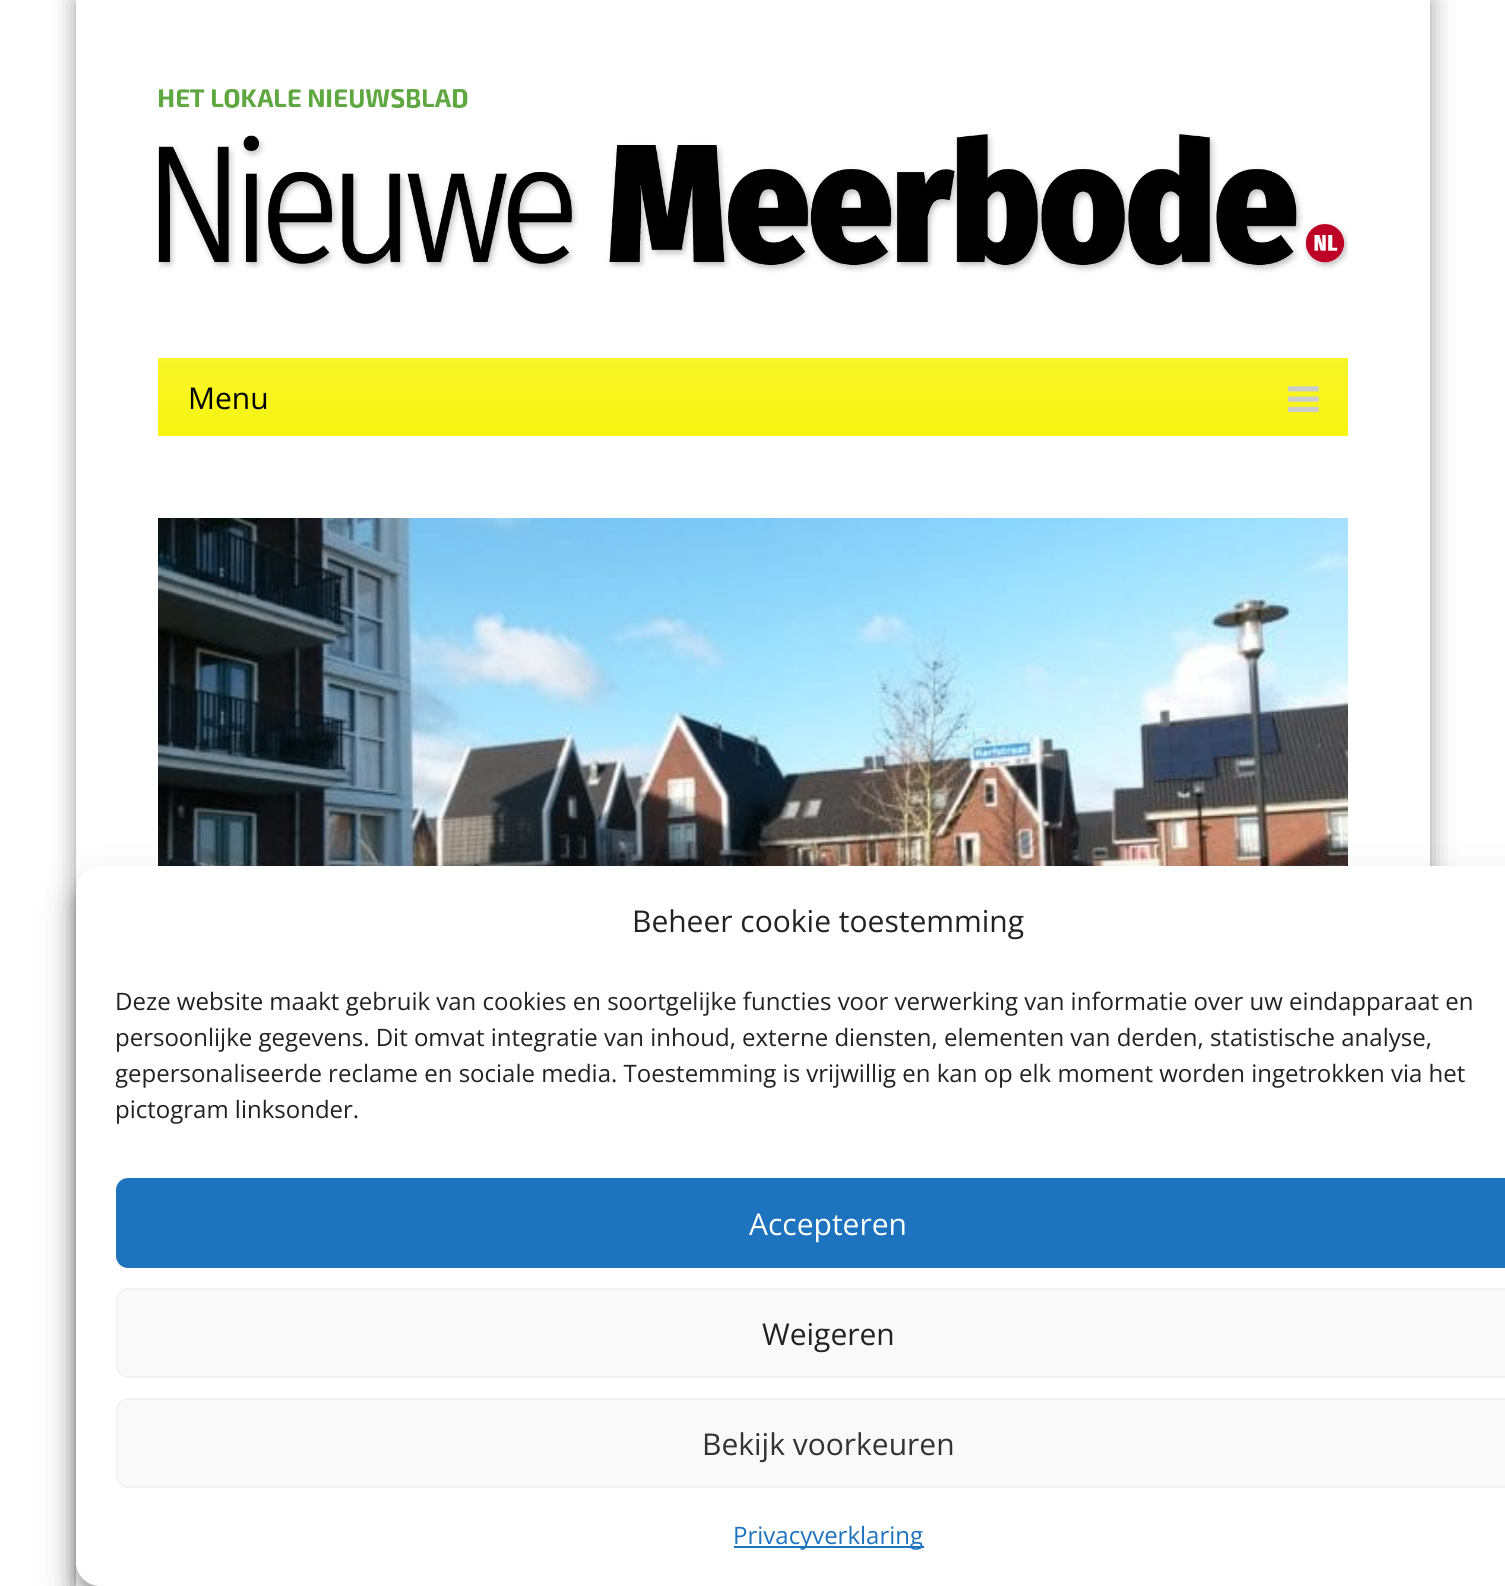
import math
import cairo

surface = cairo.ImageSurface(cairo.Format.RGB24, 1505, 1586)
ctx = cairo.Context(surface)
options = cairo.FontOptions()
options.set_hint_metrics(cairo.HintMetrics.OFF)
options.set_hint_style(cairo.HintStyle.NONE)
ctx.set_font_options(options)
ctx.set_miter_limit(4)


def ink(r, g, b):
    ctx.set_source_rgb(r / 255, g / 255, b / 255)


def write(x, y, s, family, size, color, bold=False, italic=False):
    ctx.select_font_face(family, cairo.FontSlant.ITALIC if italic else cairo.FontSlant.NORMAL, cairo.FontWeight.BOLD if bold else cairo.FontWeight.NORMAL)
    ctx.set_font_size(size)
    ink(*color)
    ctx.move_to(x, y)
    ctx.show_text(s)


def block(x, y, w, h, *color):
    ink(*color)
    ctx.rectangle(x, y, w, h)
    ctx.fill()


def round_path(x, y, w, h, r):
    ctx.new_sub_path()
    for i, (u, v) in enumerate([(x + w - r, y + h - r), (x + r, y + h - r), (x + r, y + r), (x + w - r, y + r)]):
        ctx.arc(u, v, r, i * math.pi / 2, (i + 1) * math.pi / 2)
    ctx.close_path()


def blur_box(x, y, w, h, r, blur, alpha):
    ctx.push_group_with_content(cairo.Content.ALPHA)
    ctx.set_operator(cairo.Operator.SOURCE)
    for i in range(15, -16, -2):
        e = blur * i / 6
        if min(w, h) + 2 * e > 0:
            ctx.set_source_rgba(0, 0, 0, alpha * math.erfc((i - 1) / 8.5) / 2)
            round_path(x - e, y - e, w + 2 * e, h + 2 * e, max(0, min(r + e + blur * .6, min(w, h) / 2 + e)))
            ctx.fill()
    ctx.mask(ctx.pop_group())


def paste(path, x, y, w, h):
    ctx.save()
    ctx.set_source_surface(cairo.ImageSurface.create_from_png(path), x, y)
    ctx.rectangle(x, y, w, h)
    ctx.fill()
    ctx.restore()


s1 = dict(family="Open Sans", size=30, color=(0, 0, 0))
s2 = dict(family="Open Sans", size=30, color=(34, 34, 34))
s3 = dict(family="Open Sans", size=24, color=(34, 34, 34))
s4 = dict(family="Open Sans", size=30, color=(255, 255, 255))
s5 = dict(family="Open Sans", size=30, color=(51, 51, 51))
s6 = dict(family="Open Sans", size=24, color=(30, 115, 190))

ink(255, 255, 255)
ctx.paint()
ctx.save()
ctx.set_fill_rule(cairo.FillRule.EVEN_ODD)
ctx.new_path()
ctx.move_to(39, 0)
ctx.line_to(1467, 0)
ctx.line_to(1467, 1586)
ctx.line_to(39, 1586)
ctx.close_path()
ctx.move_to(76, 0)
ctx.line_to(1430, 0)
ctx.line_to(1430, 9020)
ctx.line_to(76, 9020)
ctx.close_path()
ctx.clip()
ink(0, 0, 0)
blur_box(76, 0, 1354, 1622, 0, 12, 0.4)
ctx.restore()
paste("pic1.png", 158, 89, 1190, 184)
gradient = cairo.LinearGradient(753, 358, 753, 436)
gradient.add_color_stop_rgba(0, 0.973, 0.961, 0.161, 1)
gradient.add_color_stop_rgba(1, 0.969, 0.957, 0.067, 1)
ctx.set_source(gradient)
ctx.rectangle(158, 358, 1190, 78)
ctx.fill()
write(188, 409, "Menu", **s1)
paste("pic2.png", 1288, 386, 31, 26)
paste("pic3.png", 158, 518, 1190, 348)
ink(0, 0, 0)
blur_box(76, 878, 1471, 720, 24, 6, 0.23)
blur_box(76, 886, 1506, 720, 24, 20, 0.19)
ink(255, 255, 255)
round_path(76, 866, 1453, 720, 24)
ctx.fill()
write(632, 932, "Beheer cookie toestemming", **s2)
write(115, 1010, "Deze website maakt gebruik van cookies en soortgelijke functies voor verwerking van informatie over uw eindapparaat en", **s3)
write(115, 1046, "persoonlijke gegevens. Dit omvat integratie van inhoud, externe diensten, elementen van derden, statistische analyse,", **s3)
ctx.save()
ctx.rectangle(116, 984, 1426, 154)
ctx.clip()
write(115, 1082, "gepersonaliseerde reclame en sociale media. Toestemming is vrijwillig en kan op elk moment worden ingetrokken via het", **s3)
ctx.restore()
write(115, 1118, "pictogram linksonder.", **s3)
ink(30, 115, 190)
round_path(117, 1179, 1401, 88, 11)
ctx.fill_preserve()
ctx.stroke()
write(749, 1235, "Accepteren", **s4)
ink(249, 249, 249)
round_path(117, 1289, 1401, 88, 11)
ctx.fill_preserve()
ink(242, 242, 242)
ctx.stroke()
write(762, 1345, "Weigeren", **s2)
ink(249, 249, 249)
round_path(117, 1399, 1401, 88, 11)
ctx.fill_preserve()
ink(242, 242, 242)
ctx.stroke()
write(702, 1455, "Bekijk voorkeuren", **s5)
block(734, 1546, 190, 2, 30, 115, 190)
write(733, 1544, "Privacyverklaring", **s6)
surface.write_to_png("screenshot.png")
